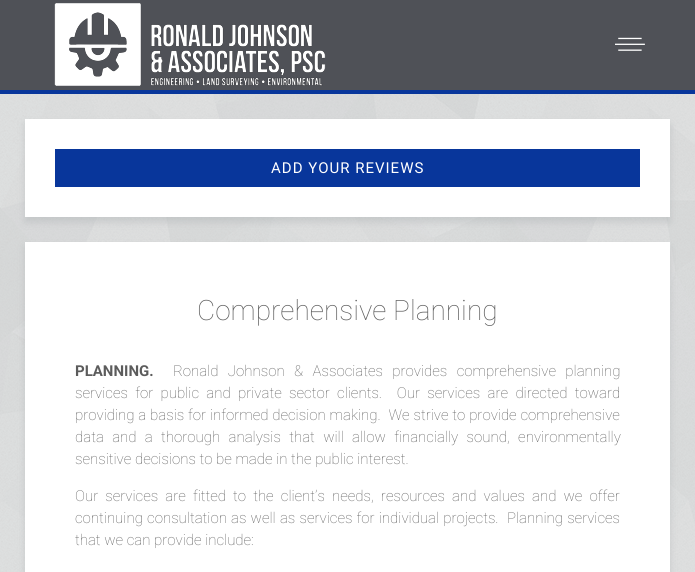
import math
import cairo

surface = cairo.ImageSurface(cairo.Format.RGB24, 695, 572)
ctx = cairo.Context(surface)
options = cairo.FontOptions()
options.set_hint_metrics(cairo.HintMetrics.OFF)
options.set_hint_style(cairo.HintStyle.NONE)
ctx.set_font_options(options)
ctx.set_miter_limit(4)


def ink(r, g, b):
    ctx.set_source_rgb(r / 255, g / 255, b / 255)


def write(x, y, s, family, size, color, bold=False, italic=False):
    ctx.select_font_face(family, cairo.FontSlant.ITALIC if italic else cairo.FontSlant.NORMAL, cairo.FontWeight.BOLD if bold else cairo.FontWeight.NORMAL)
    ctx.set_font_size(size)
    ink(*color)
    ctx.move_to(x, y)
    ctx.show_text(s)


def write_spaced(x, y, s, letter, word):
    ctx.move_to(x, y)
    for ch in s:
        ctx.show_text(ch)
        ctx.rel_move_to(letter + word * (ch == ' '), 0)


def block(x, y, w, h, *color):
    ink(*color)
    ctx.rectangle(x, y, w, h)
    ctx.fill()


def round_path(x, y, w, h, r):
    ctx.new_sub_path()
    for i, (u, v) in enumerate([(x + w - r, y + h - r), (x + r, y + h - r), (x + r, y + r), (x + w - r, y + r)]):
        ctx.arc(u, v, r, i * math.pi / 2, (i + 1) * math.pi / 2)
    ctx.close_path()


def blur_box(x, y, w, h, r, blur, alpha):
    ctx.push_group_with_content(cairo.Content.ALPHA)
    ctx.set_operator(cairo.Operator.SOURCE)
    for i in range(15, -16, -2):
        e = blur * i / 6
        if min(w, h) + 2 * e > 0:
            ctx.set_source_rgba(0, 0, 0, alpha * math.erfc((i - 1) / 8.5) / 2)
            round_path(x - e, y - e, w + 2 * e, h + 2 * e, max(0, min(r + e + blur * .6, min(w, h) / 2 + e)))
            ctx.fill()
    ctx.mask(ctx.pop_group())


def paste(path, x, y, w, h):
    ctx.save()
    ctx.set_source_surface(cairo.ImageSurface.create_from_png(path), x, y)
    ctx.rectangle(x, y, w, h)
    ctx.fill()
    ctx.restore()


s1 = dict(family="Roboto Thin", size=28, color=(92, 92, 92))
s2 = dict(family="Roboto", size=15, color=(92, 92, 92), bold=True)
s3 = dict(family="Roboto Thin", size=15, color=(92, 92, 92))

ink(255, 255, 255)
ctx.paint()
paste("pic1.png", 0, 94, 695, 478)
block(0, 0, 695, 90, 79, 81, 87)
block(0, 90, 695, 4, 8, 54, 155)
paste("pic2.png", 54, 3, 272, 83)
paste("pic3.png", 615, 37, 30, 14)
ink(160, 166, 168)
blur_box(25, 124, 645, 98, 0, 4, 0.35)
block(25, 119, 645, 98, 255, 255, 255)
block(55, 149, 585, 38, 8, 54, 155)
ctx.select_font_face("Roboto")
ctx.set_font_size(15)
ink(255, 255, 255)
write_spaced(271, 173, "ADD YOUR REVIEWS", 1, 0)
ink(160, 166, 168)
blur_box(25, 247, 645, 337, 0, 4, 0.35)
block(25, 242, 645, 330, 255, 255, 255)
write(197, 320, "Comprehensive Planning", **s1)
write(75, 376, "PLANNING.", **s2)
ctx.select_font_face("Roboto Thin")
write_spaced(173, 376, "Ronald Johnson & Associates provides comprehensive planning", 0, 5.75)
write_spaced(75, 398, "services for public and private sector clients.  Our services are directed toward", 0, 3.75)
write_spaced(75, 420, "providing a basis for informed decision making.  We strive to provide comprehensive", 0, 0.25)
write_spaced(75, 442, "data and a thorough analysis that will allow financially sound, environmentally", 0, 4.75)
write(75, 464, "sensitive decisions to be made in the public interest.", **s3)
write_spaced(75, 501, "Our services are fitted to the client’s needs, resources and values and we offer", 0, 3.5)
write_spaced(75, 523, "continuing consultation as well as services for individual projects.  Planning services", 0, 0.6)
write(75, 545, "that we can provide include:", **s3)
surface.write_to_png("screenshot.png")
